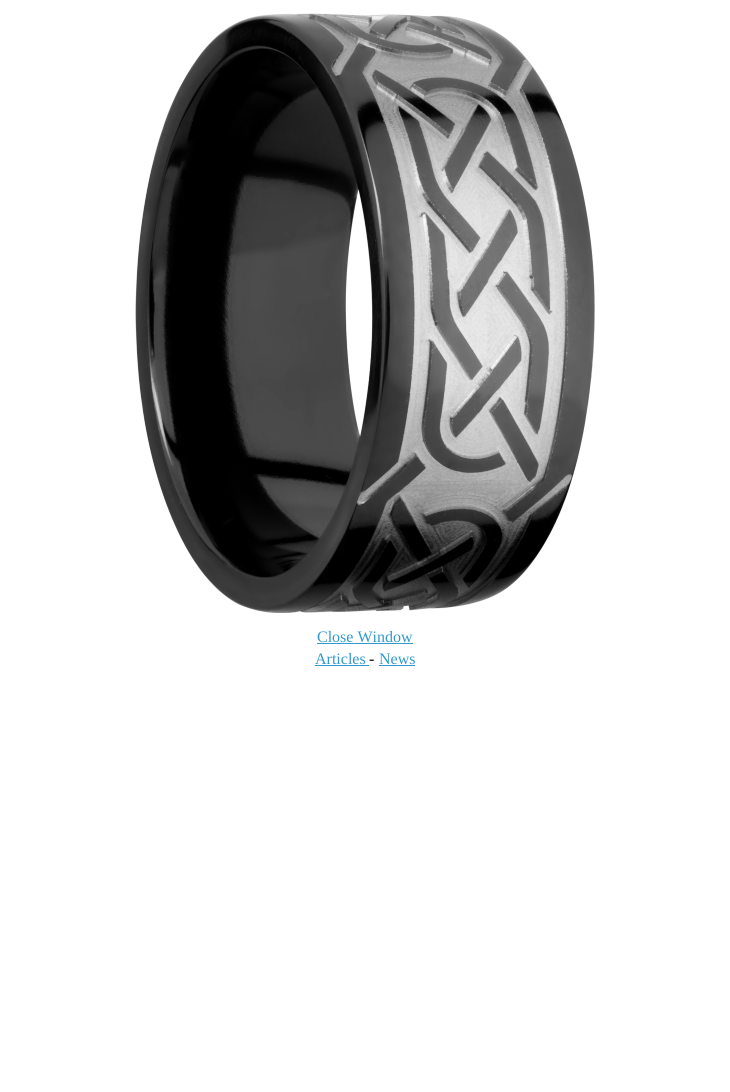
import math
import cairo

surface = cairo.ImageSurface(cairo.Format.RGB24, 730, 1092)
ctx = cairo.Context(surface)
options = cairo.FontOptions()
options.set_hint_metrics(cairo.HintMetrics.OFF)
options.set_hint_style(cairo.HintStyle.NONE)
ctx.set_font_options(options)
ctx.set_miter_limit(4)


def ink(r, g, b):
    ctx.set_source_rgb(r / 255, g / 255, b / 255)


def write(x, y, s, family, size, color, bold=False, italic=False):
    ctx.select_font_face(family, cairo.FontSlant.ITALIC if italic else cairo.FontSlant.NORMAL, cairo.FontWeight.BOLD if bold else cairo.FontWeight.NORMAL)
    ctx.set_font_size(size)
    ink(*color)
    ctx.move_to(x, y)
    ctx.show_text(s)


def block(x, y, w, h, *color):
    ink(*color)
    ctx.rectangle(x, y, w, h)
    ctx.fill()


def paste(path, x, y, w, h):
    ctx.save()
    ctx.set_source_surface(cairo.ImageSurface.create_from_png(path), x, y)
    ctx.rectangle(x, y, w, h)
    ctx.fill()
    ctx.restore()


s1 = dict(family="Liberation Serif", size=16, color=(51, 153, 204))
s2 = dict(family="Liberation Serif", size=16, color=(0, 0, 0))

ink(255, 255, 255)
ctx.paint()
paste("pic1.png", 135, 13, 460, 600)
write(317, 642, "Close Window", **s1)
block(317, 643, 96, 1, 51, 153, 204)
write(315, 664, "Articles", **s1)
block(315, 665, 54, 1, 51, 153, 204)
write(369, 664, "-", **s2)
write(379, 664, "News", **s1)
block(379, 665, 36, 1, 51, 153, 204)
surface.write_to_png("screenshot.png")
